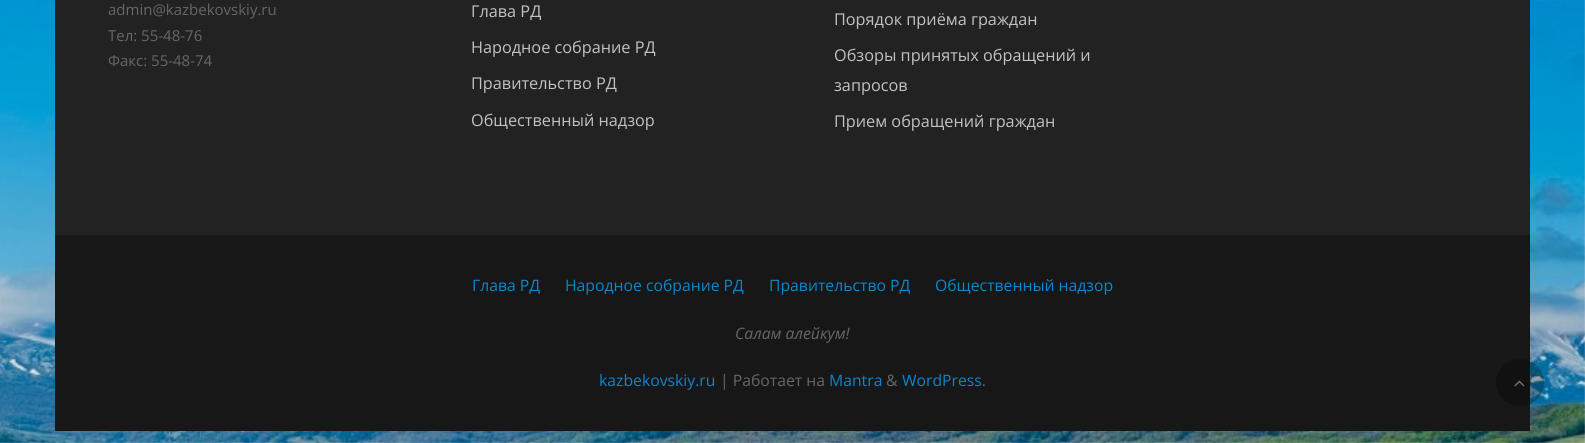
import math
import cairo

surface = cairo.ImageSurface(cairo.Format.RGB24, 1585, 443)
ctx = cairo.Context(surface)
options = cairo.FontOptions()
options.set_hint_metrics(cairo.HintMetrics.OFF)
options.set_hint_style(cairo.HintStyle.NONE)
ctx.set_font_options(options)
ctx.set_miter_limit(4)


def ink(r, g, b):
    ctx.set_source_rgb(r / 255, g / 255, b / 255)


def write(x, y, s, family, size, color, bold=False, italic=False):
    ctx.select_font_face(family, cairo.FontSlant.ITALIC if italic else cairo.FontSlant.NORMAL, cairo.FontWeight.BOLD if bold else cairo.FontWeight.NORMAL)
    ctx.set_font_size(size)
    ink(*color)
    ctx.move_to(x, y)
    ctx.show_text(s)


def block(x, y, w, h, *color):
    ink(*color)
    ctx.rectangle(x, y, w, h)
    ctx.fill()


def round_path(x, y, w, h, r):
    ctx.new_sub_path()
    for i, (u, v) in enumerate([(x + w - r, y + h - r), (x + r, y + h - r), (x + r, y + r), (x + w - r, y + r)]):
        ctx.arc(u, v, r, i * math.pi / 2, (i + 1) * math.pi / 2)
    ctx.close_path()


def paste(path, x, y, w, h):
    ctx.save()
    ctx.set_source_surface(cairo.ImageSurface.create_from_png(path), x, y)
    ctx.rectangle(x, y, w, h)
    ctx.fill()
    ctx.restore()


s1 = dict(family="Open Sans", size=15, color=(102, 102, 102))
s2 = dict(family="Open Sans", size=16.25, color=(194, 194, 194))
s3 = dict(family="Open Sans", size=15.75, color=(13, 133, 204))
s4 = dict(family="Open Sans", size=15.75, color=(102, 102, 102), italic=True)
s5 = dict(family="Open Sans", size=15.75, color=(102, 102, 102))

ink(255, 255, 255)
ctx.paint()
paste("pic1.png", 0, 0, 1585, 443)
block(55, 0, 1475, 235, 34, 34, 34)
write(108, 15, "admin@kazbekovskiy.ru", **s1)
write(108, 41, "Тел: 55-48-76", **s1)
write(108, 66, "Факс: 55-48-74", **s1)
write(471, 17, "Глава РД", **s2)
write(471, 53, "Народное собрание РД", **s2)
write(471, 89, "Правительство РД", **s2)
write(471, 126, "Общественный надзор", **s2)
write(834, 25, "Порядок приёма граждан", **s2)
write(834, 61, "Обзоры принятых обращений и", **s2)
write(834, 91, "запросов", **s2)
write(834, 127, "Прием обращений граждан", **s2)
block(55, 235, 1475, 196, 23, 23, 23)
write(472, 291, "Глава РД", **s3)
write(565, 291, "Народное собрание РД", **s3)
write(769, 291, "Правительство РД", **s3)
write(935, 291, "Общественный надзор", **s3)
write(735, 339, "Салам алейкум!", **s4)
write(599, 386, "kazbekovskiy.ru", **s3)
write(720, 386, "| Работает на", **s5)
write(829, 386, "Mantra", **s3)
write(886, 386, "&", **s5)
write(902, 386, "WordPress.", **s3)
ctx.set_source_rgba(0, 0, 0, 0.25)
round_path(1496, 359, 48, 47, 23.5)
ctx.fill()
paste("pic2.png", 1514, 380, 11, 7)
surface.write_to_png("screenshot.png")
